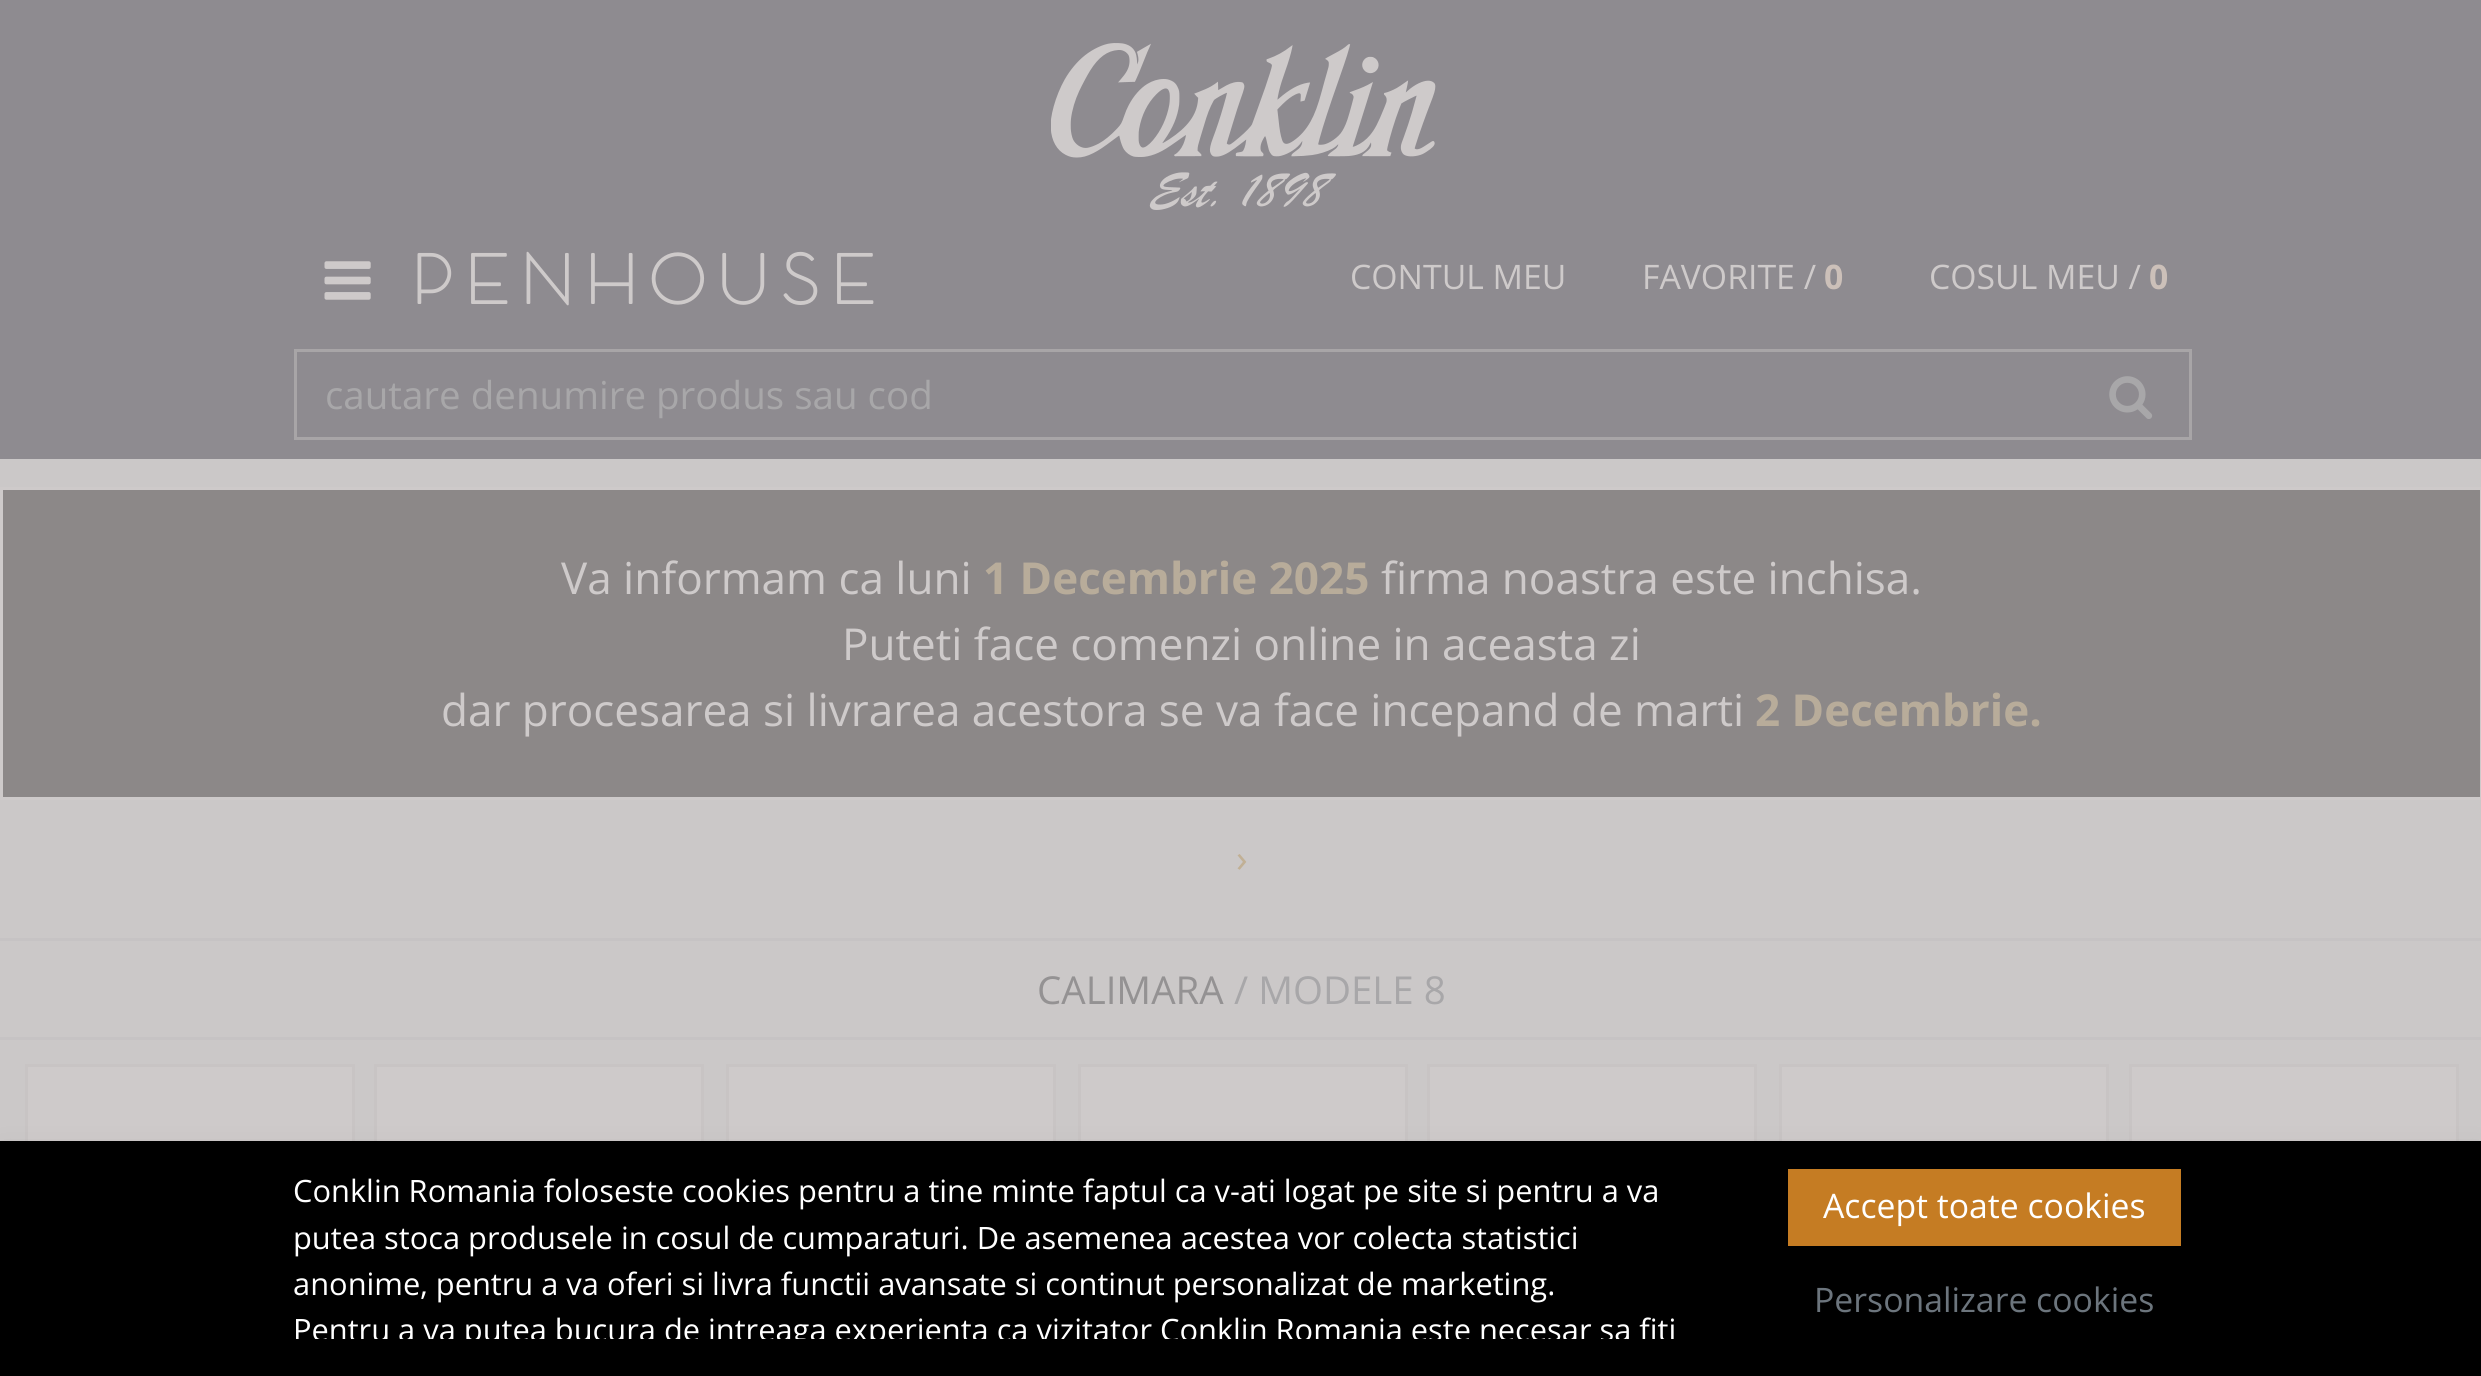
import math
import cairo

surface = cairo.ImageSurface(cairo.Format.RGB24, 2481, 1376)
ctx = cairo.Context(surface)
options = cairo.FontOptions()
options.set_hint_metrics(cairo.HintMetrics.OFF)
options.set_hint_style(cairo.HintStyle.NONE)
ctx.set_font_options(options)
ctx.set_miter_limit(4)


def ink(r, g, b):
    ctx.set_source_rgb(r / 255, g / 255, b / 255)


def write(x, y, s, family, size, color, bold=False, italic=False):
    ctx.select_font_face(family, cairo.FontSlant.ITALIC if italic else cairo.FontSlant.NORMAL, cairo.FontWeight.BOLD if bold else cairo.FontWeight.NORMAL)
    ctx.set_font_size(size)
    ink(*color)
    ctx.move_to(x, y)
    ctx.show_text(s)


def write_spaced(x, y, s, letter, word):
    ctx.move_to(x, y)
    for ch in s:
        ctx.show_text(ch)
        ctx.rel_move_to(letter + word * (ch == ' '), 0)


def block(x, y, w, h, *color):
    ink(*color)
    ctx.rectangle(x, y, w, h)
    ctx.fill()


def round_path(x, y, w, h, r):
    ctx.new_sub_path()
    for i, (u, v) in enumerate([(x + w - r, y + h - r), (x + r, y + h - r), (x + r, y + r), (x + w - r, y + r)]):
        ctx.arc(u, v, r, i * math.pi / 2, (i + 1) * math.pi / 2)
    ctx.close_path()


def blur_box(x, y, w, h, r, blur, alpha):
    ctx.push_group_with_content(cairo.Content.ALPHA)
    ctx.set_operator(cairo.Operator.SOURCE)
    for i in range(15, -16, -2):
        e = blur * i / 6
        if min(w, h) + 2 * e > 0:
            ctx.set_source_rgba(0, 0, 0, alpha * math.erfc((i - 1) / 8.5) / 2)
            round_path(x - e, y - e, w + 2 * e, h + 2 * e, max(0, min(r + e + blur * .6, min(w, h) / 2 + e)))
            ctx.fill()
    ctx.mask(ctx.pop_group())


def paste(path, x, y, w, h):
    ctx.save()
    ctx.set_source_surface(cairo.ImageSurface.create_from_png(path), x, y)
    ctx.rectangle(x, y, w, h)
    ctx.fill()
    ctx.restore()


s1 = dict(family="Open Sans", size=33.75, color=(206, 202, 202))
s2 = dict(family="Open Sans", size=33.75, color=(204, 192, 185), bold=True)
s3 = dict(family="Open Sans", size=38.5, color=(168, 167, 169))
s4 = dict(family="Open Sans", size=44, color=(206, 202, 202))
s5 = dict(family="Open Sans", size=44, color=(184, 172, 154), bold=True)
s6 = dict(family="Open Sans", size=38.5, color=(193, 176, 149))
s7 = dict(family="Open Sans", size=38.5, color=(148, 146, 147))
s8 = dict(family="Open Sans", size=30.8, color=(255, 255, 255))
s9 = dict(family="Open Sans", size=33.75, color=(255, 255, 255))
s10 = dict(family="Open Sans", size=33.75, color=(108, 117, 125))

ink(203, 200, 200)
ctx.paint()
block(0, 0, 2481, 459, 142, 139, 144)
paste("pic1.png", 1051, 43, 385, 167)
paste("pic2.png", 324, 261, 47, 39)
ctx.select_font_face("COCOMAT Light")
ctx.set_font_size(68.75)
ink(206, 202, 202)
write_spaced(412, 304, "PENHOUSE", 11, 0)
write(1350, 289, "CONTUL MEU", **s1)
write(1642, 289, "FAVORITE /", **s1)
write(1824, 289, "0", **s2)
write(1929, 289, "COSUL MEU /", **s1)
write(2149, 289, "0", **s2)
ctx.rectangle(295.5, 350.5, 1895, 88)
ink(168, 165, 167)
ctx.set_line_width(3)
ctx.stroke()
write(325, 409, "cautare denumire produs sau cod", **s3)
paste("pic3.png", 2109, 376, 44, 43)
ink(140, 136, 136)
ctx.rectangle(1.5, 488.5, 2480, 310)
ctx.fill_preserve()
ink(206, 202, 202)
ctx.stroke()
write(561, 594, "Va informam ca luni", **s4)
write(983, 594, "1 Decembrie 2025", **s5)
write(1381, 594, "firma noastra este inchisa.", **s4)
write(842, 660, "Puteti face comenzi online in aceasta zi", **s4)
write(441, 726, "dar procesarea si livrarea acestora se va face incepand de marti", **s4)
write(1755, 726, "2 Decembrie.", **s5)
write(1236, 872, "›", **s6)
block(0, 938, 2481, 3, 198, 195, 196)
block(0, 1037, 2481, 3, 198, 195, 196)
write(1037, 1004, "CALIMARA", **s7)
write(1234, 1004, "/ MODELE 8", **s3)
block(28, 1067, 324, 74, 206, 202, 202)
ctx.rectangle(26.5, 1065.5, 327, 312)
ink(200, 196, 196)
ctx.stroke()
block(377, 1067, 324, 74, 206, 202, 202)
ctx.rectangle(375.5, 1065.5, 327, 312)
ink(200, 196, 196)
ctx.stroke()
block(729, 1067, 324, 74, 206, 202, 202)
ctx.rectangle(727.5, 1065.5, 327, 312)
ink(200, 196, 196)
ctx.stroke()
block(1081, 1067, 324, 74, 206, 202, 202)
ctx.rectangle(1079.5, 1065.5, 327, 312)
ink(200, 196, 196)
ctx.stroke()
block(1430, 1067, 324, 74, 206, 202, 202)
ctx.rectangle(1428.5, 1065.5, 327, 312)
ink(200, 196, 196)
ctx.stroke()
block(1782, 1067, 324, 74, 206, 202, 202)
ctx.rectangle(1780.5, 1065.5, 327, 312)
ink(200, 196, 196)
ctx.stroke()
block(2132, 1067, 324, 74, 206, 202, 202)
ctx.rectangle(2130.5, 1065.5, 327, 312)
ink(200, 196, 196)
ctx.stroke()
ink(0, 0, 0)
blur_box(0, 1161, 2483, 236, 0, 19, 0.15)
block(0, 1141, 2481, 235, 0, 0, 0)
write(293, 1202, "Conklin Romania foloseste cookies pentru a tine minte faptul ca v-ati logat pe site si pentru a va", **s8)
write(293, 1249, "putea stoca produsele in cosul de cumparaturi. De asemenea acestea vor colecta statistici", **s8)
write(293, 1295, "anonime, pentru a va oferi si livra functii avansate si continut personalizat de marketing.", **s8)
ctx.save()
ctx.rectangle(253, 1169, 1485, 170)
ctx.clip()
write(293, 1341, "Pentru a va putea bucura de intreaga experienta ca vizitator Conklin Romania este necesar sa fiti", **s8)
ctx.restore()
block(1788, 1169, 393, 77, 197, 124, 35)
write(1823, 1218, "Accept toate cookies", **s9)
write(1814, 1312, "Personalizare cookies", **s10)
surface.write_to_png("screenshot.png")
